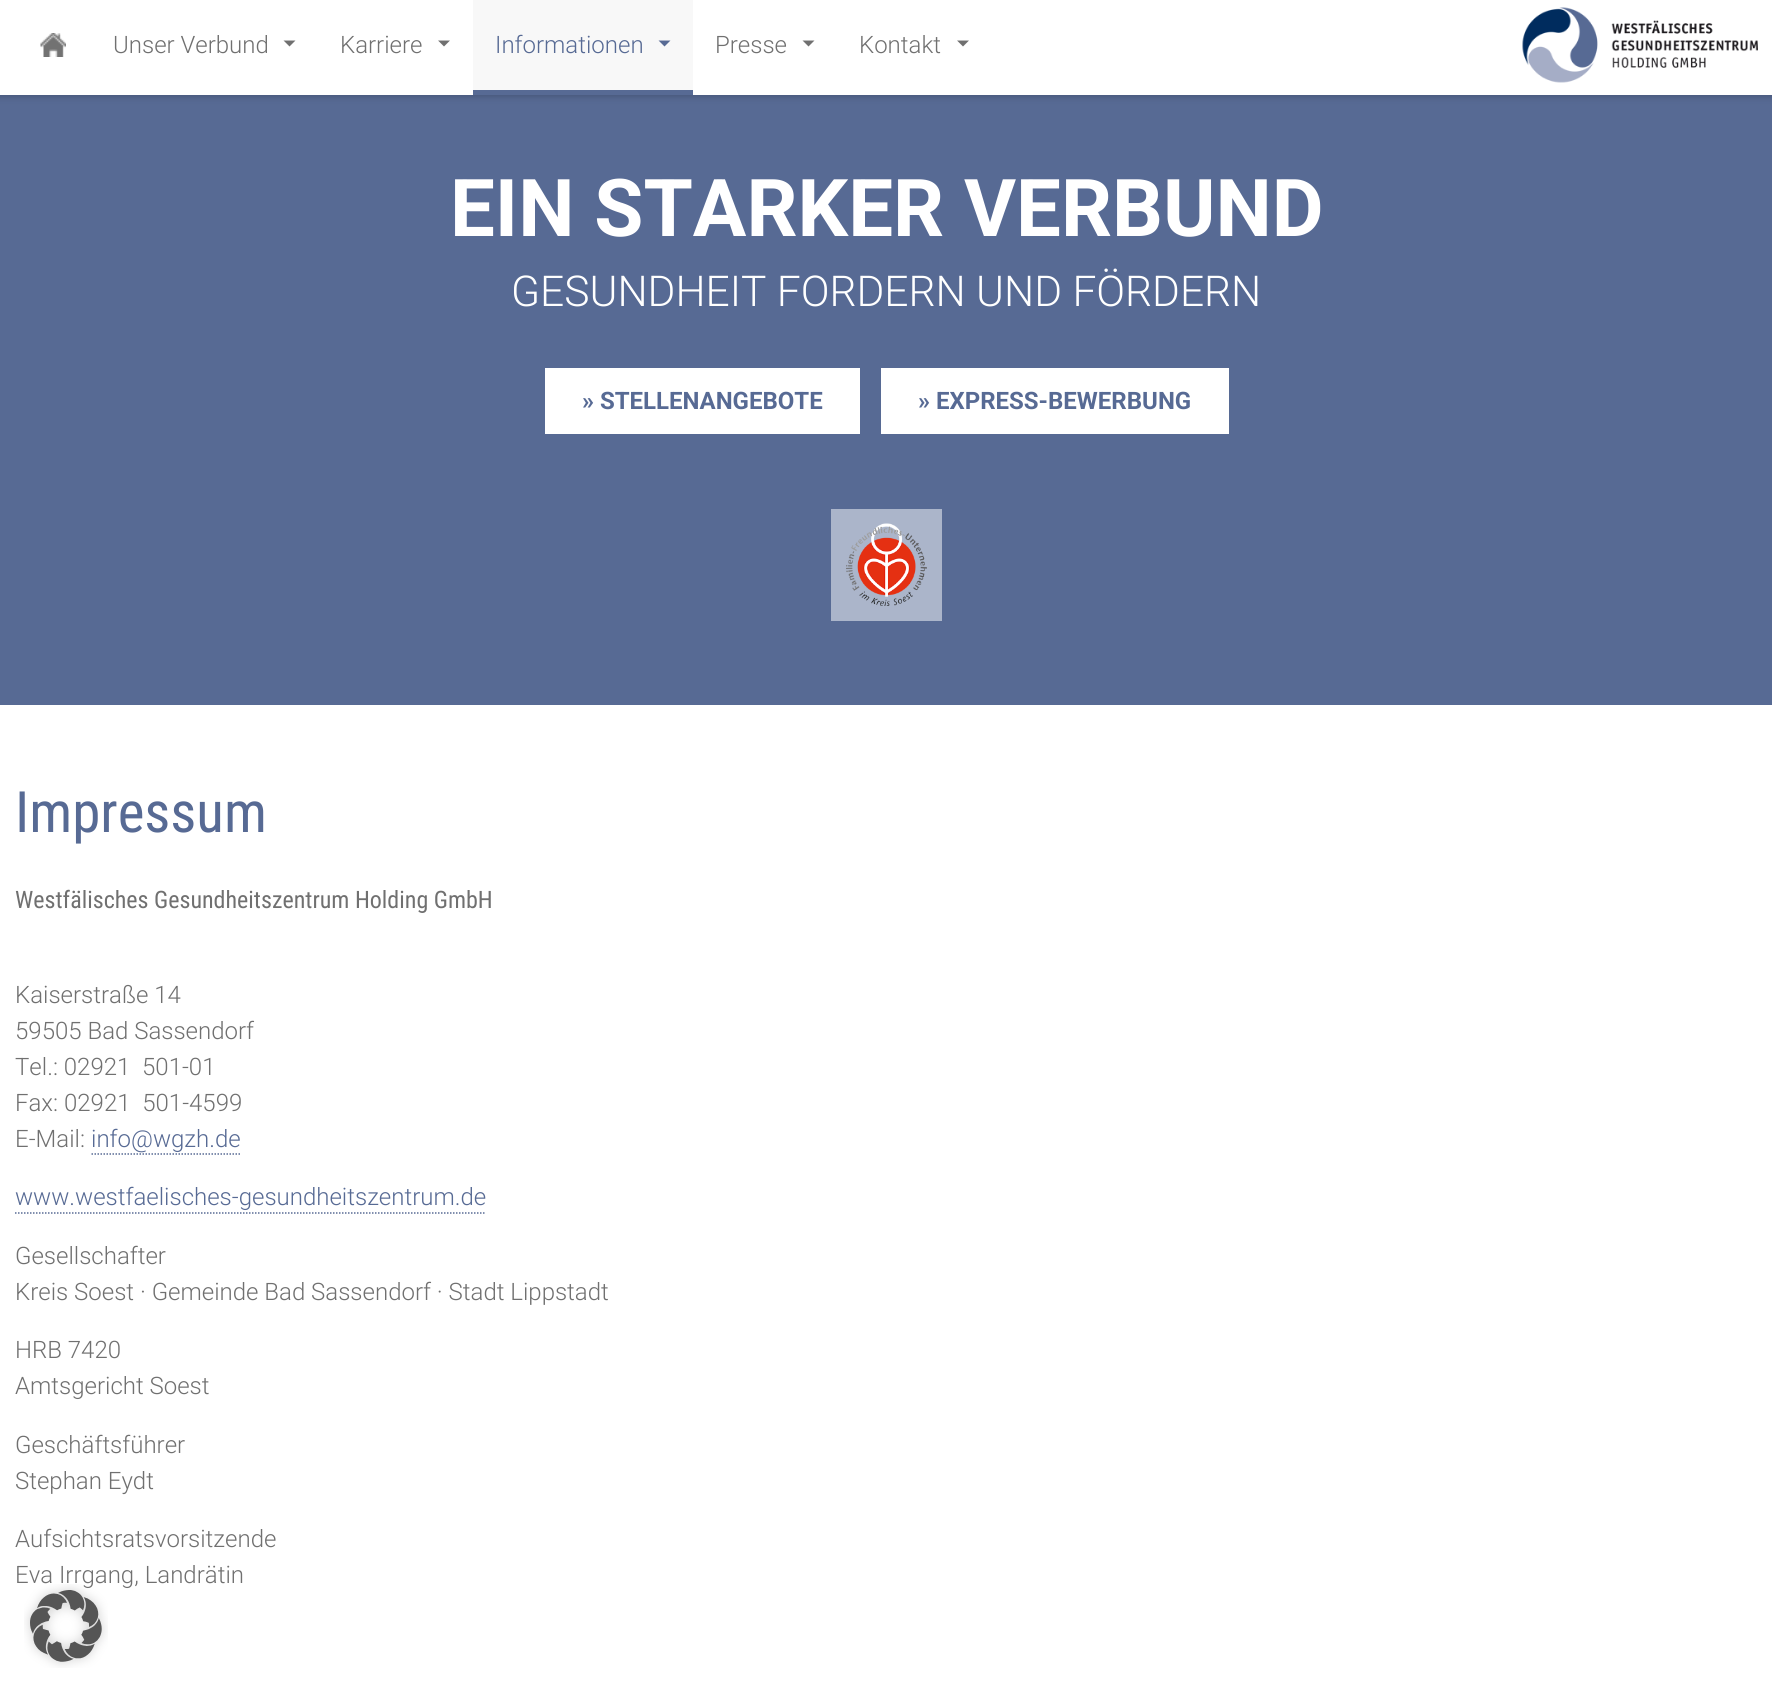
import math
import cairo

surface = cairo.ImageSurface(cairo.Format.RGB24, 1772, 1692)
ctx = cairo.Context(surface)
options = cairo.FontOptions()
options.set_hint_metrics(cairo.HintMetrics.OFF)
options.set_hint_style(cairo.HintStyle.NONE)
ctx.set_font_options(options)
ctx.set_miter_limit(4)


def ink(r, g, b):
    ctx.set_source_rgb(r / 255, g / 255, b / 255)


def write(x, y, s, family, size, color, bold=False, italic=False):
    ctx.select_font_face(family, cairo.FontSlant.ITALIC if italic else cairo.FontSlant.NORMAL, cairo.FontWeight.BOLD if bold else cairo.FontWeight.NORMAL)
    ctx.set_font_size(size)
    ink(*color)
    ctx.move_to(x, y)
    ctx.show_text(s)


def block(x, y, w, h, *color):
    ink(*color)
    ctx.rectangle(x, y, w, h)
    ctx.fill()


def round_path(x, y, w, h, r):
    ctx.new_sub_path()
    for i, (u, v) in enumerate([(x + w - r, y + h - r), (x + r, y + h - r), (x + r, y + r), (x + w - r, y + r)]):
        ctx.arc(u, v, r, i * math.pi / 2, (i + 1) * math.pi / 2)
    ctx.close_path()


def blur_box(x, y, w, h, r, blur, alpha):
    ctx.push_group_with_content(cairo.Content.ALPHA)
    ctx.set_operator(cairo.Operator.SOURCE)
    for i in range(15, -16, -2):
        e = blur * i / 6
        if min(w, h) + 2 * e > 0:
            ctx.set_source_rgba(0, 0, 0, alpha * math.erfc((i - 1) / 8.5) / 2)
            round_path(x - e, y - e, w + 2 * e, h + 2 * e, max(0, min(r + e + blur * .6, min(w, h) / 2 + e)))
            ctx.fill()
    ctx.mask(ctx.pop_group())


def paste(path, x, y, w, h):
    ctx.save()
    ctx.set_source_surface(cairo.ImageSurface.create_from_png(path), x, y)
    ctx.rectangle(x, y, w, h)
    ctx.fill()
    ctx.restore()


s1 = dict(family="Roboto Light", size=24, color=(112, 112, 112))
s2 = dict(family="Roboto Light", size=24, color=(87, 106, 148))
s3 = dict(family="Roboto", size=79.75, color=(255, 255, 255), bold=True)
s4 = dict(family="Roboto Light", size=42.5, color=(255, 255, 255))
s5 = dict(family="Roboto", size=24, color=(87, 106, 148), bold=True)
s6 = dict(family="Roboto Condensed", size=57, color=(87, 106, 148))
s7 = dict(family="Roboto Condensed", size=24, color=(112, 112, 112))

ink(255, 255, 255)
ctx.paint()
block(0, 95, 1772, 610, 87, 106, 148)
ink(0, 0, 0)
blur_box(-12, -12, 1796, 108, 0, 4, 0.22)
block(0, 0, 1772, 95, 255, 255, 255)
paste("pic1.png", 40, 33, 26, 24)
write(113, 53, "Unser Verbund", **s1)
ctx.new_path()
ctx.move_to(283.5, 40.5)
ctx.line_to(295.5, 40.5)
ctx.line_to(289.5, 46.5)
ctx.close_path()
ctx.fill()
write(340, 53, "Karriere", **s1)
ctx.new_path()
ctx.move_to(438, 40.5)
ctx.line_to(450, 40.5)
ctx.line_to(444, 46.5)
ctx.close_path()
ctx.fill()
block(473, 0, 220, 90, 248, 248, 248)
block(473, 90, 220, 5, 87, 106, 148)
write(495, 53, "Informationen", **s2)
ctx.new_path()
ctx.move_to(658.5, 40.5)
ctx.line_to(670.5, 40.5)
ctx.line_to(664.5, 46.5)
ctx.close_path()
ctx.fill()
write(715, 53, "Presse", **s1)
ctx.new_path()
ctx.move_to(802.5, 40.5)
ctx.line_to(814.5, 40.5)
ctx.line_to(808.5, 46.5)
ctx.close_path()
ctx.fill()
write(859, 53, "Kontakt", **s1)
ctx.new_path()
ctx.move_to(957, 40.5)
ctx.line_to(969, 40.5)
ctx.line_to(963, 46.5)
ctx.close_path()
ctx.fill()
paste("pic2.png", 1522, 7, 236, 76)
write(450, 236, "EIN STARKER VERBUND", **s3)
write(511, 306, "GESUNDHEIT FORDERN UND FÖRDERN", **s4)
block(545, 368, 315, 66, 255, 255, 255)
write(582, 409, "» STELLENANGEBOTE", **s5)
block(881, 368, 348, 66, 255, 255, 255)
write(918, 409, "» EXPRESS-BEWERBUNG", **s5)
block(831, 509, 111, 112, 171, 181, 202)
paste("pic3.png", 846, 523, 81, 83)
write(15, 832, "Impressum", **s6)
write(15, 908, "Westfälisches Gesundheitszentrum Holding GmbH", **s7)
write(15, 1003, "Kaiserstraße 14", **s1)
write(15, 1039, "59505 Bad Sassendorf", **s1)
write(15, 1075, "Tel.: 02921  501-01", **s1)
write(15, 1111, "Fax: 02921  501-4599", **s1)
write(15, 1147, "E-Mail:", **s1)
write(91, 1147, "info@wgzh.de", **s2)
ctx.new_path()
ctx.move_to(91.5, 1154)
ctx.line_to(240, 1154)
ctx.set_line_width(1.5)
ctx.set_dash([1.5, 1.5])
ctx.stroke()
write(15, 1205, "www.westfaelisches-gesundheitszentrum.de", **s2)
ctx.new_path()
ctx.move_to(15, 1213)
ctx.line_to(486, 1213)
ctx.stroke()
write(15, 1264, "Gesellschafter", **s1)
write(15, 1300, "Kreis Soest · Gemeinde Bad Sassendorf · Stadt Lippstadt", **s1)
write(15, 1358, "HRB 7420", **s1)
write(15, 1394, "Amtsgericht Soest", **s1)
write(15, 1453, "Geschäftsführer", **s1)
write(15, 1489, "Stephan Eydt", **s1)
write(15, 1547, "Aufsichtsratsvorsitzende", **s1)
write(15, 1583, "Eva Irrgang, Landrätin", **s1)
paste("pic4.png", 24, 1584, 84, 84)
surface.write_to_png("screenshot.png")
